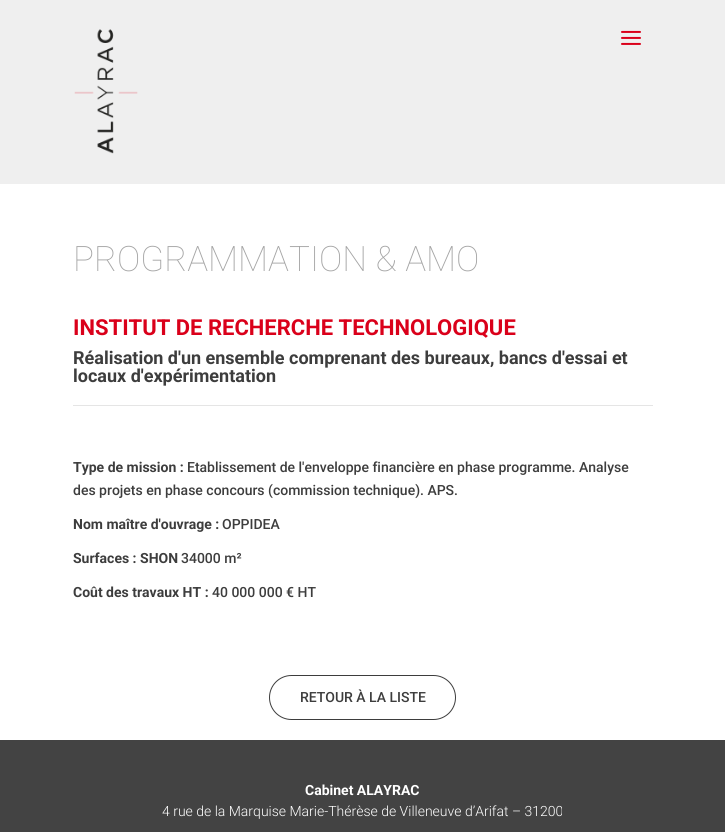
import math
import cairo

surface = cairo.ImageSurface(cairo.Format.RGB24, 725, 832)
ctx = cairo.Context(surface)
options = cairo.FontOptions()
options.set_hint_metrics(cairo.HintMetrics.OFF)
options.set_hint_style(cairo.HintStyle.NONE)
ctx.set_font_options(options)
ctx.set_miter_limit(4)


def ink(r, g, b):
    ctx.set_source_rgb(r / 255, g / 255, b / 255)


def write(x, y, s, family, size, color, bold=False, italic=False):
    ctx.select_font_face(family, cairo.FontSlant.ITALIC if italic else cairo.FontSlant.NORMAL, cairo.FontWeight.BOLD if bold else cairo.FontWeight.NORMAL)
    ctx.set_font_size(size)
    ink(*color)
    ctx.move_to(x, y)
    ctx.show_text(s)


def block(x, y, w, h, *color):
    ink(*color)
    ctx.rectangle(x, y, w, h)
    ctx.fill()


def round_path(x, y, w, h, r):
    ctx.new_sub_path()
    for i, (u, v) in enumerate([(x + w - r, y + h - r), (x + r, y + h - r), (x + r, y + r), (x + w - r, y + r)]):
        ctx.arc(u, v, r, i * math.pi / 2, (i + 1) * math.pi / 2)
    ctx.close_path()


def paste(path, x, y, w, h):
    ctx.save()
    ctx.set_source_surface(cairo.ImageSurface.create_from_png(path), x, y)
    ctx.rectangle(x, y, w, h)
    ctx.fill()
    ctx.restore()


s1 = dict(family="Roboto Thin", size=35, color=(165, 165, 165))
s2 = dict(family="Roboto", size=22, color=(218, 0, 26), bold=True)
s3 = dict(family="Roboto", size=18, color=(61, 61, 61), bold=True)
s4 = dict(family="Roboto", size=14, color=(61, 61, 61), bold=True)
s5 = dict(family="Roboto Medium", size=14, color=(61, 61, 61))
s6 = dict(family="Roboto", size=14, color=(255, 255, 255), bold=True)
s7 = dict(family="Roboto Light", size=14, color=(255, 255, 255))

ink(255, 255, 255)
ctx.paint()
block(0, 0, 725, 184, 239, 239, 239)
paste("pic1.png", 74, 29, 64, 125)
paste("pic2.png", 621, 30, 20, 15)
write(73, 271, "PROGRAMMATION & AMO", **s1)
write(73, 335, "INSTITUT DE RECHERCHE TECHNOLOGIQUE", **s2)
write(73, 364, "Réalisation d'un ensemble comprenant des bureaux, bancs d'essai et", **s3)
write(73, 382, "locaux d'expérimentation", **s3)
block(73, 405, 580, 1, 229, 229, 229)
write(73, 472, "Type de mission :", **s4)
write(187, 472, "Etablissement de l'enveloppe financière en phase programme. Analyse", **s5)
write(73, 495, "des projets en phase concours (commission technique). APS.", **s5)
write(73, 529, "Nom maître d'ouvrage :", **s4)
write(222, 529, "OPPIDEA", **s5)
write(73, 563, "Surfaces : SHON", **s4)
write(181, 563, "34000 m²", **s5)
write(73, 597, "Coût des travaux HT :", **s4)
write(212, 597, "40 000 000 € HT", **s5)
round_path(269.5, 675.5, 186, 44, 22)
ctx.set_line_width(1)
ctx.stroke()
write(300, 702, "RETOUR À LA LISTE", **s5)
block(0, 740, 725, 92, 67, 67, 67)
write(305, 795, "Cabinet ALAYRAC", **s6)
write(162, 816, "4 rue de la Marquise Marie-Thérèse de Villeneuve d’Arifat – 31200", **s7)
surface.write_to_png("screenshot.png")
